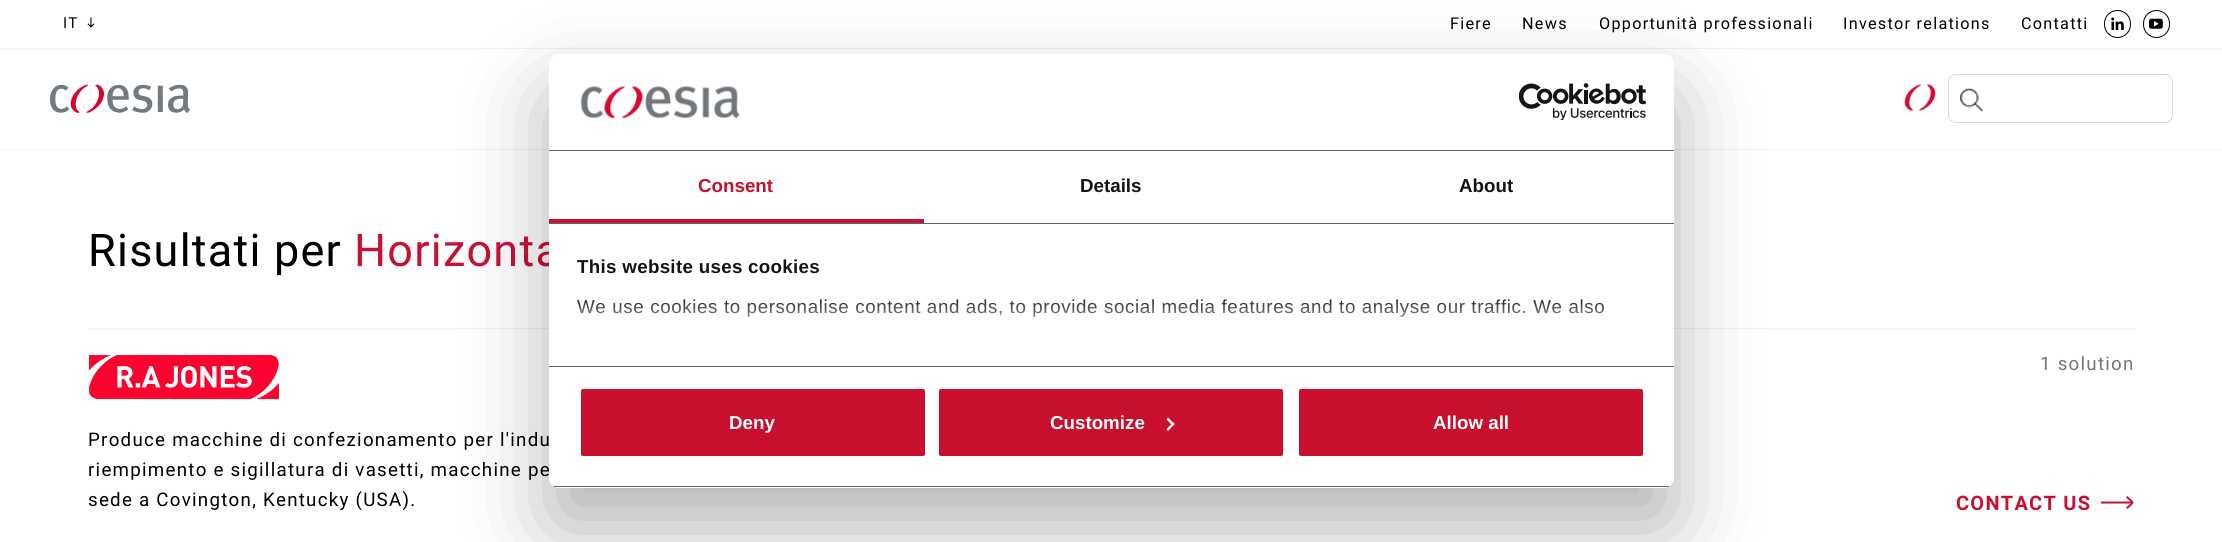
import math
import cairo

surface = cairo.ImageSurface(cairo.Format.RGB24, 2222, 542)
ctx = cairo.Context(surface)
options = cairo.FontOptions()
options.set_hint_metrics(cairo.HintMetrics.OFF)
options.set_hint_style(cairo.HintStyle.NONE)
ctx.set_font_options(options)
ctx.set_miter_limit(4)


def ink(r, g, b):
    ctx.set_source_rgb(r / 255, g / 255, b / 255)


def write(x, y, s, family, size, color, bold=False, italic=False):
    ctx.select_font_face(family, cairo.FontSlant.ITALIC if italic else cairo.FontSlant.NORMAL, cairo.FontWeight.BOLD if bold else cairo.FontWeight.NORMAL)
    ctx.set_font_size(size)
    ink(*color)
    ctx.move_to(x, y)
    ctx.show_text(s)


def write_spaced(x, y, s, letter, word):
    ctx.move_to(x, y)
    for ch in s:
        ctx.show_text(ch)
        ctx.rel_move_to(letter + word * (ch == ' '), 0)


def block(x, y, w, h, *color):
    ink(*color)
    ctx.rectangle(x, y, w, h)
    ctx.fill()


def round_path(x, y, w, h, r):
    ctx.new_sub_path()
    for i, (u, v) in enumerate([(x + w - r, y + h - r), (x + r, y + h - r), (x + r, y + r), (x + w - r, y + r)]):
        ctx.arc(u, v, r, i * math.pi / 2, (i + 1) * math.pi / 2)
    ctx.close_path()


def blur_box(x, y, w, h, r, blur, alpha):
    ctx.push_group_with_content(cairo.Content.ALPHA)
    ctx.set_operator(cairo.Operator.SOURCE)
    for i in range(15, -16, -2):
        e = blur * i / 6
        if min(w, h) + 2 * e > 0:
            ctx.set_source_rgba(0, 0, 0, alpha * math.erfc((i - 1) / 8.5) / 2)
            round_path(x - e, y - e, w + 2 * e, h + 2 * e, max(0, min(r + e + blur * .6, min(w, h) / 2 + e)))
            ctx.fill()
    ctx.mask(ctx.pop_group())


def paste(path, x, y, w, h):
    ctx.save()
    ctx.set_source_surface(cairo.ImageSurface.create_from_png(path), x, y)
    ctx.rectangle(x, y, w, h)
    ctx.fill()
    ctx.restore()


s1 = dict(family="Liberation Sans", size=18.75, color=(200, 16, 46), bold=True)
s2 = dict(family="Liberation Sans", size=18.75, color=(20, 20, 20), bold=True)
s3 = dict(family="Liberation Sans", size=18.75, color=(255, 255, 255), bold=True)

ink(255, 255, 255)
ctx.paint()
block(0, 48, 2222, 1, 240, 240, 240)
ctx.select_font_face("Roboto")
ctx.set_font_size(15)
ink(0, 0, 0)
write_spaced(63, 28, "IT", 1.25, 0)
paste("pic1.png", 87, 17, 8, 11)
ctx.set_font_size(16.25)
write_spaced(1450, 29, "Fiere", 1.25, 0)
write_spaced(1522, 29, "News", 1.25, 0)
write_spaced(1599, 29, "Opportunità professionali", 1.25, 0)
write_spaced(1843, 29, "Investor relations", 1.25, 0)
write_spaced(2021, 29, "Contatti", 1.25, 0)
round_path(2104.5, 10.5, 26, 27, 13)
ctx.set_line_width(1)
ctx.stroke()
paste("pic2.png", 2111, 17, 13, 13)
round_path(2143.5, 10.5, 26, 27, 13)
ctx.stroke()
paste("pic3.png", 2148, 18, 15, 11)
block(0, 149, 2222, 1, 240, 240, 240)
paste("pic4.png", 50, 84, 140, 29)
paste("pic5.png", 1904, 84, 32, 27)
round_path(1948.5, 74.5, 224, 48, 7.5)
ink(214, 217, 220)
ctx.stroke()
paste("pic6.png", 1960, 88, 23, 24)
ctx.set_font_size(45)
ink(0, 0, 0)
write_spaced(88, 266, "Risultati per", 1.25, 0)
ink(200, 16, 52)
write_spaced(354, 266, "Horizonta", 1.25, 0)
block(88, 328, 2047, 1, 240, 240, 240)
paste("pic7.png", 88, 355, 192, 45)
ctx.set_font_size(18.75)
ink(119, 119, 119)
write_spaced(2040, 370, "1 solution", 1.25, 0)
ink(0, 0, 0)
write_spaced(88, 446, "Produce macchine di confezionamento per l'indu", 1.25, 0)
write_spaced(88, 476, "riempimento e sigillatura di vasetti, macchine pe", 1.25, 0)
write_spaced(88, 506, "sede a Covington, Kentucky (USA).", 1.25, 0)
ctx.select_font_face("Roboto", cairo.FontSlant.NORMAL, cairo.FontWeight.BOLD)
ctx.set_font_size(20)
ink(200, 16, 52)
write_spaced(1956, 510, "CONTACT US", 1.25, 0)
ctx.new_path()
ctx.move_to(2126, 497.5)
ctx.line_to(2130.5, 501.5)
ctx.line_to(2101, 501.5)
ctx.line_to(2101, 503.5)
ctx.line_to(2130.5, 503.5)
ctx.line_to(2126, 507.5)
ctx.line_to(2127.5, 509)
ctx.curve_to(2135.5, 501, 2135.5, 504, 2127.5, 496)
ctx.close_path()
ctx.fill()
ink(0, 0, 0)
blur_box(549, 94, 1125, 434, 10, 42.5, 0.3)
ink(255, 255, 255)
round_path(549, 54, 1125, 434, 10)
ctx.fill()
block(549, 150, 1125, 1, 91, 103, 112)
paste("pic8.png", 580, 86, 160, 33)
paste("pic9.png", 1519, 83, 127, 37)
block(549, 223, 1125, 1, 91, 103, 112)
block(549, 219, 375, 4, 200, 16, 46)
write(698, 192, "Consent", **s1)
write(1080, 192, "Details", **s2)
write(1459, 192, "About", **s2)
block(549, 366, 1125, 1, 91, 103, 112)
ink(20, 20, 20)
write_spaced(577, 273, "This website uses cookies", 0.3, 0)
ctx.select_font_face("Liberation Sans")
write_spaced(577, 313, "We use cookies to personalise content and ads, to provide social media features and to analyse our traffic. We also", 0.62, 0)
gradient = cairo.LinearGradient(1099, 367, 1099, 296)
gradient.add_color_stop_rgba(0, 1, 1, 1, 1)
gradient.add_color_stop_rgba(0.5, 1, 1, 1, 0.8)
gradient.add_color_stop_rgba(1, 1, 1, 1, 0)
ctx.set_source(gradient)
ctx.rectangle(577, 299, 1028, 18)
ctx.fill()
ctx.save()
round_path(549, 54, 1125, 434, 10)
ctx.clip()
block(549, 486, 1125, 1, 91, 103, 112)
ctx.restore()
ink(200, 16, 46)
round_path(579.5, 387.5, 347, 70, 3.5)
ctx.fill_preserve()
ink(255, 255, 255)
ctx.set_line_width(3)
ctx.stroke()
write(729, 429, "Deny", **s3)
ink(200, 16, 46)
round_path(937.5, 387.5, 347, 70, 3.5)
ctx.fill_preserve()
ink(255, 255, 255)
ctx.stroke()
write(1050, 429, "Customize", **s3)
ctx.new_path()
ctx.move_to(1168, 417.5)
ctx.line_to(1174.5, 424)
ctx.line_to(1173, 426)
ctx.line_to(1166.5, 419.5)
ctx.close_path()
ctx.fill()
ctx.new_path()
ctx.move_to(1173, 422.5)
ctx.line_to(1174.5, 424)
ctx.line_to(1168, 431)
ctx.line_to(1166.5, 429)
ctx.close_path()
ctx.fill()
ink(200, 16, 46)
round_path(1297.5, 387.5, 347, 70, 3.5)
ctx.fill_preserve()
ink(255, 255, 255)
ctx.stroke()
write(1433, 429, "Allow all", **s3)
surface.write_to_png("screenshot.png")
